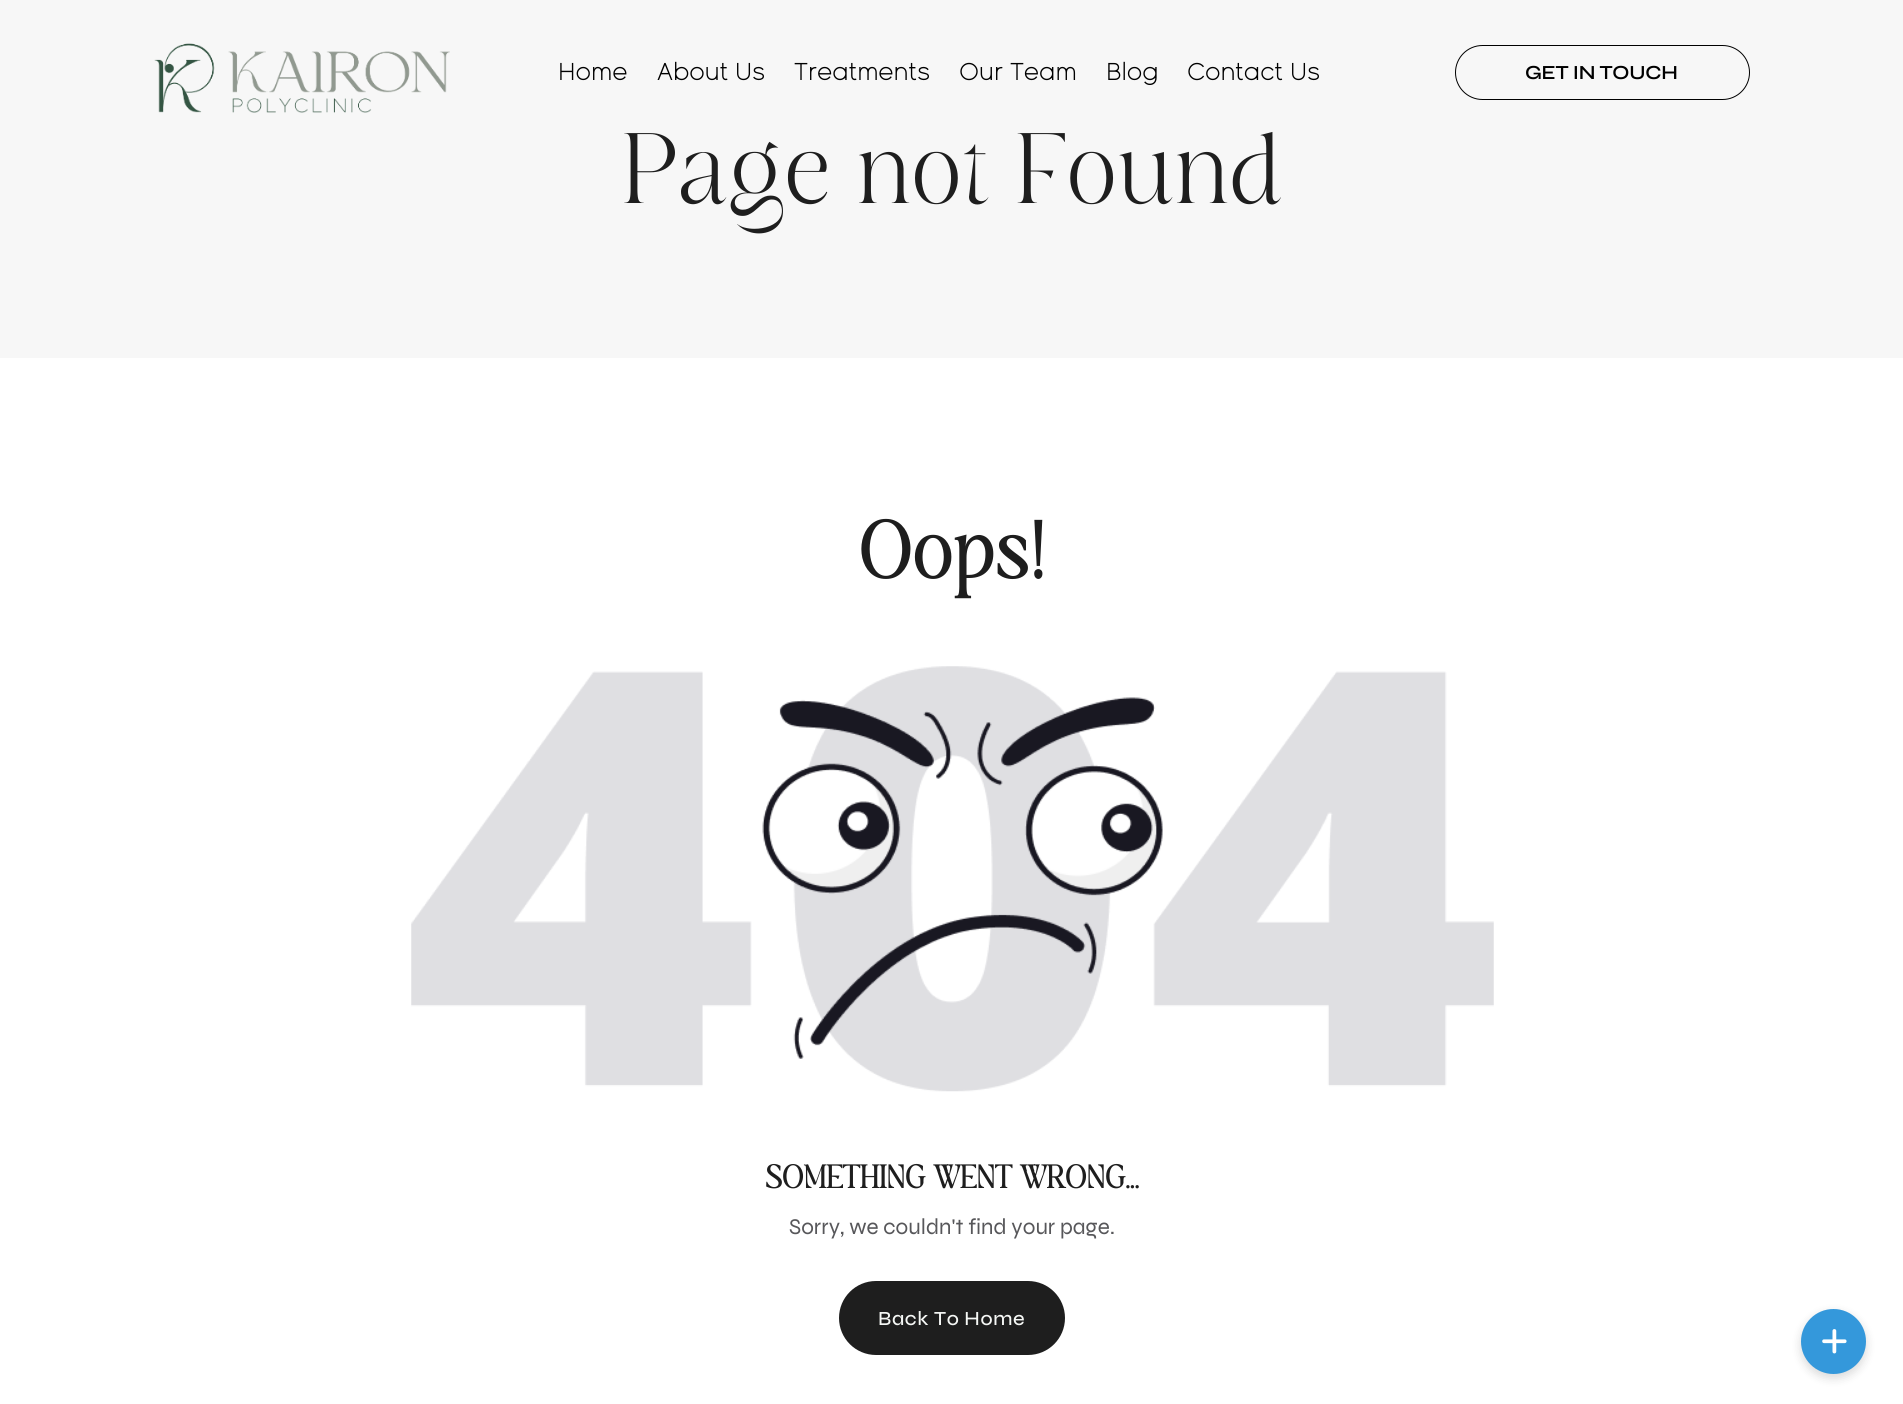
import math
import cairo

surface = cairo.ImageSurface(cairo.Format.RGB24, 1903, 1404)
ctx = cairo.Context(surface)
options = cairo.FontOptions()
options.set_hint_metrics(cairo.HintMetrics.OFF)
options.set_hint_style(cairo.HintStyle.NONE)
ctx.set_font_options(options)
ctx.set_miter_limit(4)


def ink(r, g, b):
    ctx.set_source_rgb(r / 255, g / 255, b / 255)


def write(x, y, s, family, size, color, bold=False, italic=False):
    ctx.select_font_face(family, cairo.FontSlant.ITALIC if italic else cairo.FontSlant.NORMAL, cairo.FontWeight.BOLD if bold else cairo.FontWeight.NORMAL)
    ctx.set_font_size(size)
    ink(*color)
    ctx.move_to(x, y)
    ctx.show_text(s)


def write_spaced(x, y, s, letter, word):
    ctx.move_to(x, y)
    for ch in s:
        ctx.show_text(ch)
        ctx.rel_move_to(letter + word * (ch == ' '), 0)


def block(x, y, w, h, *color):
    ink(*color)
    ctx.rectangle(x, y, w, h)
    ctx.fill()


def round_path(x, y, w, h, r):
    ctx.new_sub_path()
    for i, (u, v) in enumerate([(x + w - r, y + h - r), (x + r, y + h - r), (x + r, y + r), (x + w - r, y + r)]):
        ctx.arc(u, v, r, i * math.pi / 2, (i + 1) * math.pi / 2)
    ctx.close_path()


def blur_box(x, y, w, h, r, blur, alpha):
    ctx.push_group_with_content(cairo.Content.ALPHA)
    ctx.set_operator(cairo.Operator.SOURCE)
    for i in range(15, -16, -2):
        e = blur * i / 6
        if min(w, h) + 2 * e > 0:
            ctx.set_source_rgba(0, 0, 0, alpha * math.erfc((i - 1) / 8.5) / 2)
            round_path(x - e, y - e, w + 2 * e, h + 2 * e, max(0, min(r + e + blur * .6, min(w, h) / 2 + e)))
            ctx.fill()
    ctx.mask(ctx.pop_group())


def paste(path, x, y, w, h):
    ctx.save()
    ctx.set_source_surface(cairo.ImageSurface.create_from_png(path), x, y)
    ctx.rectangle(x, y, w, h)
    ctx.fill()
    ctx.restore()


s1 = dict(family="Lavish", size=100, color=(30, 30, 30))
s2 = dict(family="Lavish", size=80, color=(30, 30, 30), bold=True)
s3 = dict(family="Syne", size=22.5, color=(87, 87, 90))

ink(255, 255, 255)
ctx.paint()
block(0, 0, 1903, 358, 247, 247, 247)
paste("pic1.png", 154, 43, 296, 70)
ctx.select_font_face("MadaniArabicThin", cairo.FontSlant.NORMAL, cairo.FontWeight.BOLD)
ctx.set_font_size(22.5)
ink(0, 0, 0)
write_spaced(558, 80, "Home", 0.6, 0)
write_spaced(657, 80, "About Us", 0.6, 0)
write_spaced(794, 80, "Treatments", 0.6, 0)
write_spaced(959, 80, "Our Team", 0.6, 0)
write_spaced(1106, 80, "Blog", 0.6, 0)
write_spaced(1187, 80, "Contact Us", 0.6, 0)
round_path(1455.5, 45.5, 294, 54, 27)
ctx.set_line_width(1)
ctx.stroke()
ctx.select_font_face("Syne SemiBold")
ctx.set_font_size(20)
write_spaced(1525, 79, "GET IN TOUCH", -0.25, 0)
write(622, 203, "Page not Found", **s1)
write(858, 578, "Oops!", **s2)
paste("pic2.png", 411, 666, 1083, 426)
ctx.set_font_size(32.5)
write_spaced(765, 1188, "SOMETHING WENT WRONG...", -0.3, 0)
write(789, 1234, "Sorry, we couldn't find your page.", **s3)
ink(30, 30, 30)
round_path(839, 1281, 226, 74, 37)
ctx.fill()
ctx.select_font_face("Syne Medium")
ctx.set_font_size(20)
ink(245, 247, 245)
write_spaced(878, 1325, "Back To Home", 0.6, 0)
ink(0, 0, 0)
blur_box(1801, 1313, 65, 65, 32.5, 5, 0.15)
ink(52, 152, 219)
ctx.arc(1833.5, 1341.5, 32.5, 0, 2 * math.pi)
ctx.fill()
paste("pic3.png", 1822, 1329, 25, 25)
surface.write_to_png("screenshot.png")
